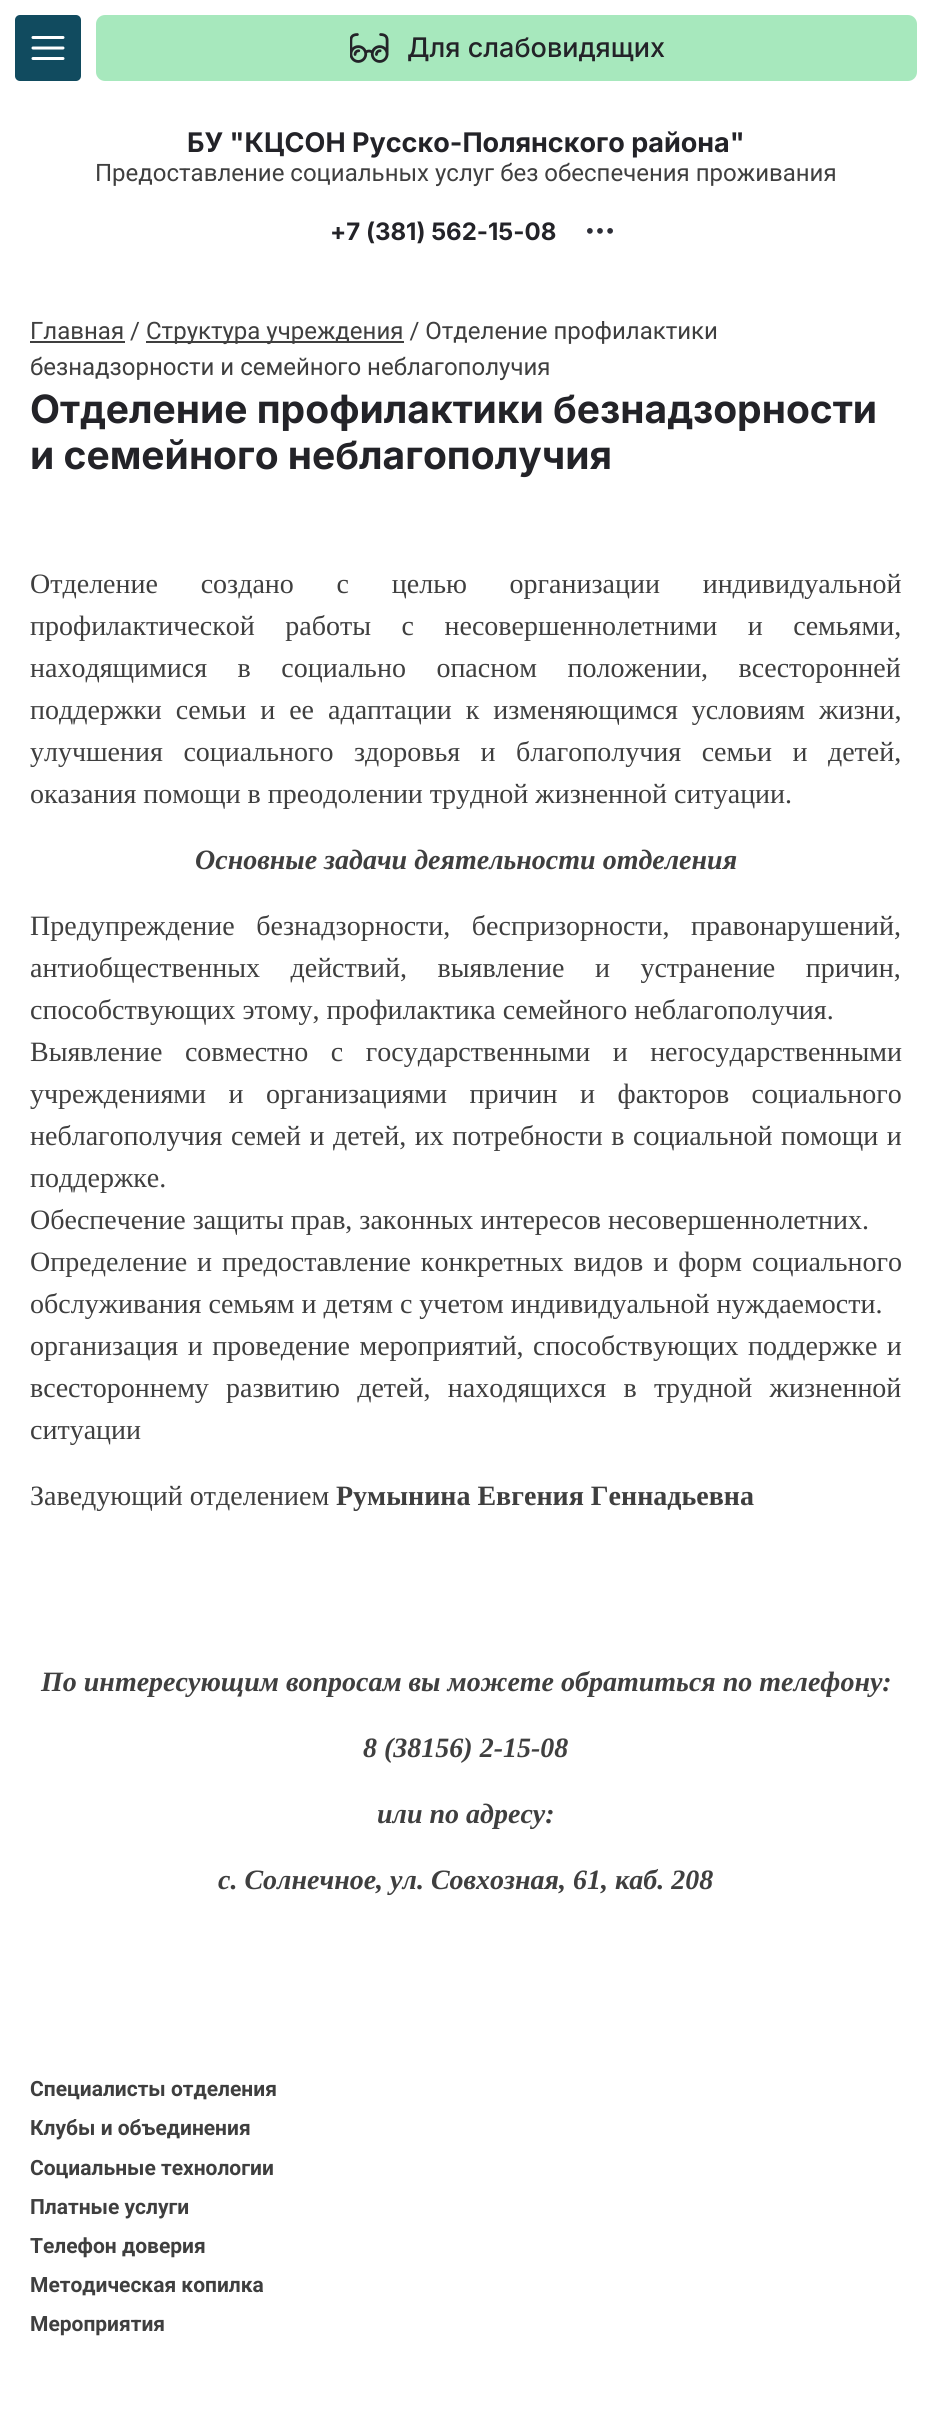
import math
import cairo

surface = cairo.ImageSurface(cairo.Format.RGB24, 931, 2419)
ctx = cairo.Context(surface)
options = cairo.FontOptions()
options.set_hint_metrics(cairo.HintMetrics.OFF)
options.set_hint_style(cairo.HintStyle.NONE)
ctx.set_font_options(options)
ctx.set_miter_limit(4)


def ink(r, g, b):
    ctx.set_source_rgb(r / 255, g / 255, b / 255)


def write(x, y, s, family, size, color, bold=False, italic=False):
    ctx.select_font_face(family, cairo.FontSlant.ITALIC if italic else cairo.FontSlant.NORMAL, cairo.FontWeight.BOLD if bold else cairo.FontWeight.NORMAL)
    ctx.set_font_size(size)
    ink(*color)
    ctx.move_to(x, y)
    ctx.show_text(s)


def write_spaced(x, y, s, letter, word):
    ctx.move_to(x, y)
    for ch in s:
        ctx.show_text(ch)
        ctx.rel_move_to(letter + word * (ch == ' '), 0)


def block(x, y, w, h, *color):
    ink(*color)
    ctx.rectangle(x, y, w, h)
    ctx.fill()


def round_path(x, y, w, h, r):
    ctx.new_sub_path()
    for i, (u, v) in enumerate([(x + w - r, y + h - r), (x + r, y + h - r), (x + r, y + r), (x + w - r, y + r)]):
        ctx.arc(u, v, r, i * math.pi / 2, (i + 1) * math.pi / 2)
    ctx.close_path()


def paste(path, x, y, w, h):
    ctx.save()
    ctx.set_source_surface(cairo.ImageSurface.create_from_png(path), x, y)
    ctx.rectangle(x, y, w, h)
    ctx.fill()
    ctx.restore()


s1 = dict(family="Inter Medium", size=27, color=(35, 35, 40))
s2 = dict(family="Inter", size=27, color=(35, 35, 40), bold=True)
s3 = dict(family="Roboto", size=24, color=(63, 63, 63))
s4 = dict(family="Inter", size=24, color=(35, 35, 40), bold=True)
s5 = dict(family="Inter", size=39, color=(35, 35, 40), bold=True)
s6 = dict(family="Liberation Serif", size=28, color=(63, 63, 63))
s7 = dict(family="Liberation Serif", size=28, color=(63, 63, 63), bold=True, italic=True)
s8 = dict(family="Liberation Serif", size=28, color=(63, 63, 63), bold=True)
s9 = dict(family="Roboto", size=21, color=(63, 63, 63), bold=True)

ink(255, 255, 255)
ctx.paint()
ink(17, 75, 95)
round_path(15, 15, 66, 66, 5)
ctx.fill()
paste("pic1.png", 31, 36, 34, 24)
ink(167, 232, 189)
round_path(96, 15, 821, 66, 9)
ctx.fill()
paste("pic2.png", 350, 33, 39, 30)
write(407, 57, "Для слабовидящих", **s1)
write(187, 152, "БУ \"КЦСОН Русско-Полянского района\"", **s2)
write(95, 181, "Предоставление социальных услуг без обеспечения проживания", **s3)
write(330, 240, "+7 (381) 562-15-08", **s4)
paste("pic3.png", 587, 228, 26, 6)
write(30, 339, "Главная /", **s3)
block(30, 341, 95, 2, 63, 63, 63)
block(146, 341, 258, 2, 63, 63, 63)
write(146, 339, "Структура учреждения / Отделение профилактики", **s3)
write(30, 375, "безнадзорности и семейного неблагополучия", **s3)
write(30, 423, "Отделение профилактики безнадзорности", **s5)
write(30, 469, "и семейного неблагополучия", **s5)
ctx.select_font_face("Liberation Serif")
ctx.set_font_size(28)
ink(63, 63, 63)
write_spaced(30, 593, "Отделение создано с целью организации индивидуальной", 0, 35.75)
write_spaced(30, 635, "профилактической работы с несовершеннолетними и семьями,", 0, 23.5)
write_spaced(30, 677, "находящимися в социально опасном положении, всесторонней", 0, 23.5)
write_spaced(30, 719, "поддержки семьи и ее адаптации к изменяющимся условиям жизни,", 0, 7)
write_spaced(30, 761, "улучшения социального здоровья и благополучия семьи и детей,", 0, 13.5)
write(30, 803, "оказания помощи в преодолении трудной жизненной ситуации.", **s6)
write(195, 869, "Основные задачи деятельности отделения", **s7)
ctx.select_font_face("Liberation Serif")
write_spaced(30, 935, "Предупреждение безнадзорности, беспризорности, правонарушений,", 0, 14.5)
write_spaced(30, 977, "антиобщественных действий, выявление и устранение причин,", 0, 23.5)
write(30, 1019, "способствующих этому, профилактика семейного неблагополучия.", **s6)
write_spaced(30, 1061, "Выявление совместно с государственными и негосударственными", 0, 15.5)
write_spaced(30, 1103, "учреждениями и организациями причин и факторов социального", 0, 15.5)
write_spaced(30, 1145, "неблагополучия семей и детей, их потребности в социальной помощи и", 0, 1.5)
write(30, 1187, "поддержке.", **s6)
write(30, 1229, "Обеспечение защиты прав, законных интересов несовершеннолетних.", **s6)
write_spaced(30, 1271, "Определение и предоставление конкретных видов и форм социального", 0, 3)
write(30, 1313, "обслуживания семьям и детям с учетом индивидуальной нуждаемости.", **s6)
write_spaced(30, 1355, "организация и проведение мероприятий, способствующих поддержке и", 0, 2.5)
write_spaced(30, 1397, "всестороннему развитию детей, находящихся в трудной жизненной", 0, 10.25)
write(30, 1439, "ситуации", **s6)
write(30, 1505, "Заведующий отделением", **s6)
write(336, 1505, "Румынина Евгения Геннадьевна", **s8)
write(41, 1691, "По интересующим вопросам вы можете обратиться по телефону:", **s7)
write(363, 1757, "8 (38156) 2-15-08", **s7)
write(377, 1823, "или по адресу:", **s7)
write(218, 1889, "с. Солнечное, ул. Совхозная, 61, каб. 208", **s7)
write(30, 2096, "Специалисты отделения", **s9)
write(30, 2135, "Клубы и объединения", **s9)
write(30, 2175, "Социальные технологии", **s9)
write(30, 2214, "Платные услуги", **s9)
write(30, 2253, "Телефон доверия", **s9)
write(30, 2292, "Методическая копилка", **s9)
write(30, 2331, "Мероприятия", **s9)
surface.write_to_png("screenshot.png")
